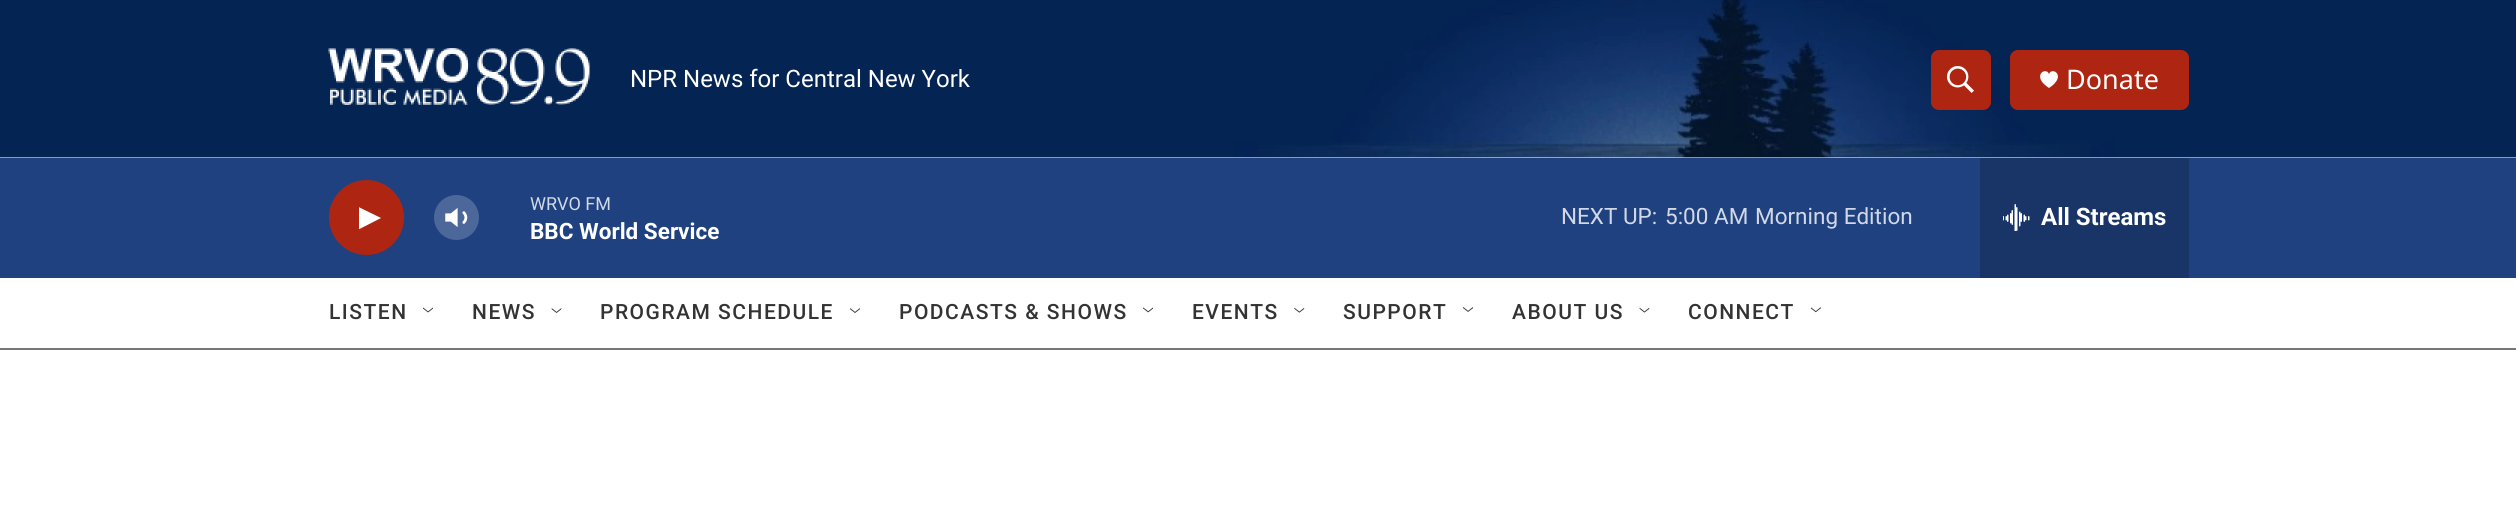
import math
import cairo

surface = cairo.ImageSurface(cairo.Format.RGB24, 2516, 505)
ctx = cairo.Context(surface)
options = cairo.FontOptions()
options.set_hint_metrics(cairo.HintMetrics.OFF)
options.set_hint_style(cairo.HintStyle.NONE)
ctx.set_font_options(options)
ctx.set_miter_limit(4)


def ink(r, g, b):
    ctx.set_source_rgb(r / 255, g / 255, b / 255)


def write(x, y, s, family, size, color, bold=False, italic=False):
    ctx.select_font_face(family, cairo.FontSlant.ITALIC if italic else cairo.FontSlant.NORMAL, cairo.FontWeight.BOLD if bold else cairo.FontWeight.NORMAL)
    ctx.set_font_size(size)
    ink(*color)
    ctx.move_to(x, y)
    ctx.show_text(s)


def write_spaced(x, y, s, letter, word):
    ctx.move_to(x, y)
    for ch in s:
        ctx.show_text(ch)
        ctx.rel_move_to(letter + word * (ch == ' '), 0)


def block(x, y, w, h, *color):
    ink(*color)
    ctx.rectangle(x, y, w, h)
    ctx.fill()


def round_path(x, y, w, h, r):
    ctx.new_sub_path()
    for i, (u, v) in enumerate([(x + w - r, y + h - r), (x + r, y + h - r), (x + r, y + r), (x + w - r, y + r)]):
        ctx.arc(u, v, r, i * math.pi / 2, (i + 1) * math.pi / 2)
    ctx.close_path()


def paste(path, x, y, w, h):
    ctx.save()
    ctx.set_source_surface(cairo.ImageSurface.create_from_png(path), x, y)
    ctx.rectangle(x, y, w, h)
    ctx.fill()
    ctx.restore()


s1 = dict(family="Roboto", size=24, color=(255, 255, 255))
s2 = dict(family="Noto Sans", size=27, color=(255, 255, 255))
s3 = dict(family="Roboto", size=18, color=(210, 217, 230))
s4 = dict(family="Roboto", size=22.5, color=(255, 255, 255), bold=True)
s5 = dict(family="Roboto", size=22.5, color=(210, 217, 230))
s6 = dict(family="Roboto", size=24, color=(255, 255, 255), bold=True)

ink(255, 255, 255)
ctx.paint()
block(0, 348, 2516, 2, 122, 117, 117)
paste("pic1.png", 0, 0, 2516, 158)
paste("pic2.png", 328, 48, 262, 57)
write(630, 87, "NPR News for Central New York", **s1)
ink(174, 37, 18)
round_path(1931, 50, 60, 60, 8)
ctx.fill()
paste("pic3.png", 1947, 66, 27, 27)
round_path(2010, 50, 179, 60, 8)
ctx.fill()
ink(255, 255, 255)
ctx.new_path()
ctx.move_to(2049, 74)
ctx.curve_to(2046, 66, 2030.5, 76, 2049, 88)
ctx.curve_to(2067.5, 76, 2052, 66, 2049, 74)
ctx.close_path()
ctx.fill()
write(2066, 89, "Donate", **s2)
block(0, 158, 2516, 120, 31, 65, 128)
ink(174, 37, 18)
ctx.new_path()
ctx.arc(366.5, 217.5, 37.5, 0, 2 * math.pi)
ctx.fill()
ctx.save()
ctx.rectangle(359, 204, 22, 29)
ctx.clip()
ink(255, 255, 255)
ctx.new_path()
ctx.move_to(358.5, 207)
ctx.line_to(381, 218)
ctx.line_to(358.5, 229.5)
ctx.close_path()
ctx.fill()
ctx.restore()
paste("pic4.png", 445, 208, 23, 19)
ctx.set_source_rgba(1, 1, 1, 0.2)
ctx.arc(456.5, 217.5, 22.5, 0, 2 * math.pi)
ctx.fill()
write(530, 210, "WRVO FM", **s3)
write(530, 239, "BBC World Service", **s4)
write(1561, 224, "NEXT UP:", **s5)
write(1665, 224, "5:00 AM", **s5)
write(1755, 224, "Morning Edition", **s5)
block(1980, 158, 209, 120, 25, 52, 102)
paste("pic5.png", 2003, 204, 27, 27)
write(2041, 225, "All Streams", **s6)
ctx.select_font_face("Roboto Medium")
ctx.set_font_size(21)
ink(51, 51, 51)
write_spaced(329, 319, "LISTEN", 1.5, 0)
paste("pic6.png", 423, 307, 10, 6)
write_spaced(472, 319, "NEWS", 1.5, 0)
paste("pic7.png", 551, 308, 11, 5)
write_spaced(600, 319, "PROGRAM SCHEDULE", 1.5, 0)
paste("pic8.png", 850, 308, 10, 5)
write_spaced(899, 319, "PODCASTS & SHOWS", 1.5, 0)
paste("pic9.png", 1143, 307, 11, 6)
write_spaced(1192, 319, "EVENTS", 1.5, 0)
paste("pic10.png", 1294, 307, 11, 6)
write_spaced(1343, 319, "SUPPORT", 1.5, 0)
paste("pic11.png", 1463, 307, 11, 5)
write_spaced(1512, 319, "ABOUT US", 1.5, 0)
paste("pic12.png", 1639, 307, 11, 6)
write_spaced(1688, 319, "CONNECT", 1.5, 0)
paste("pic13.png", 1810, 307, 11, 6)
surface.write_to_png("screenshot.png")
